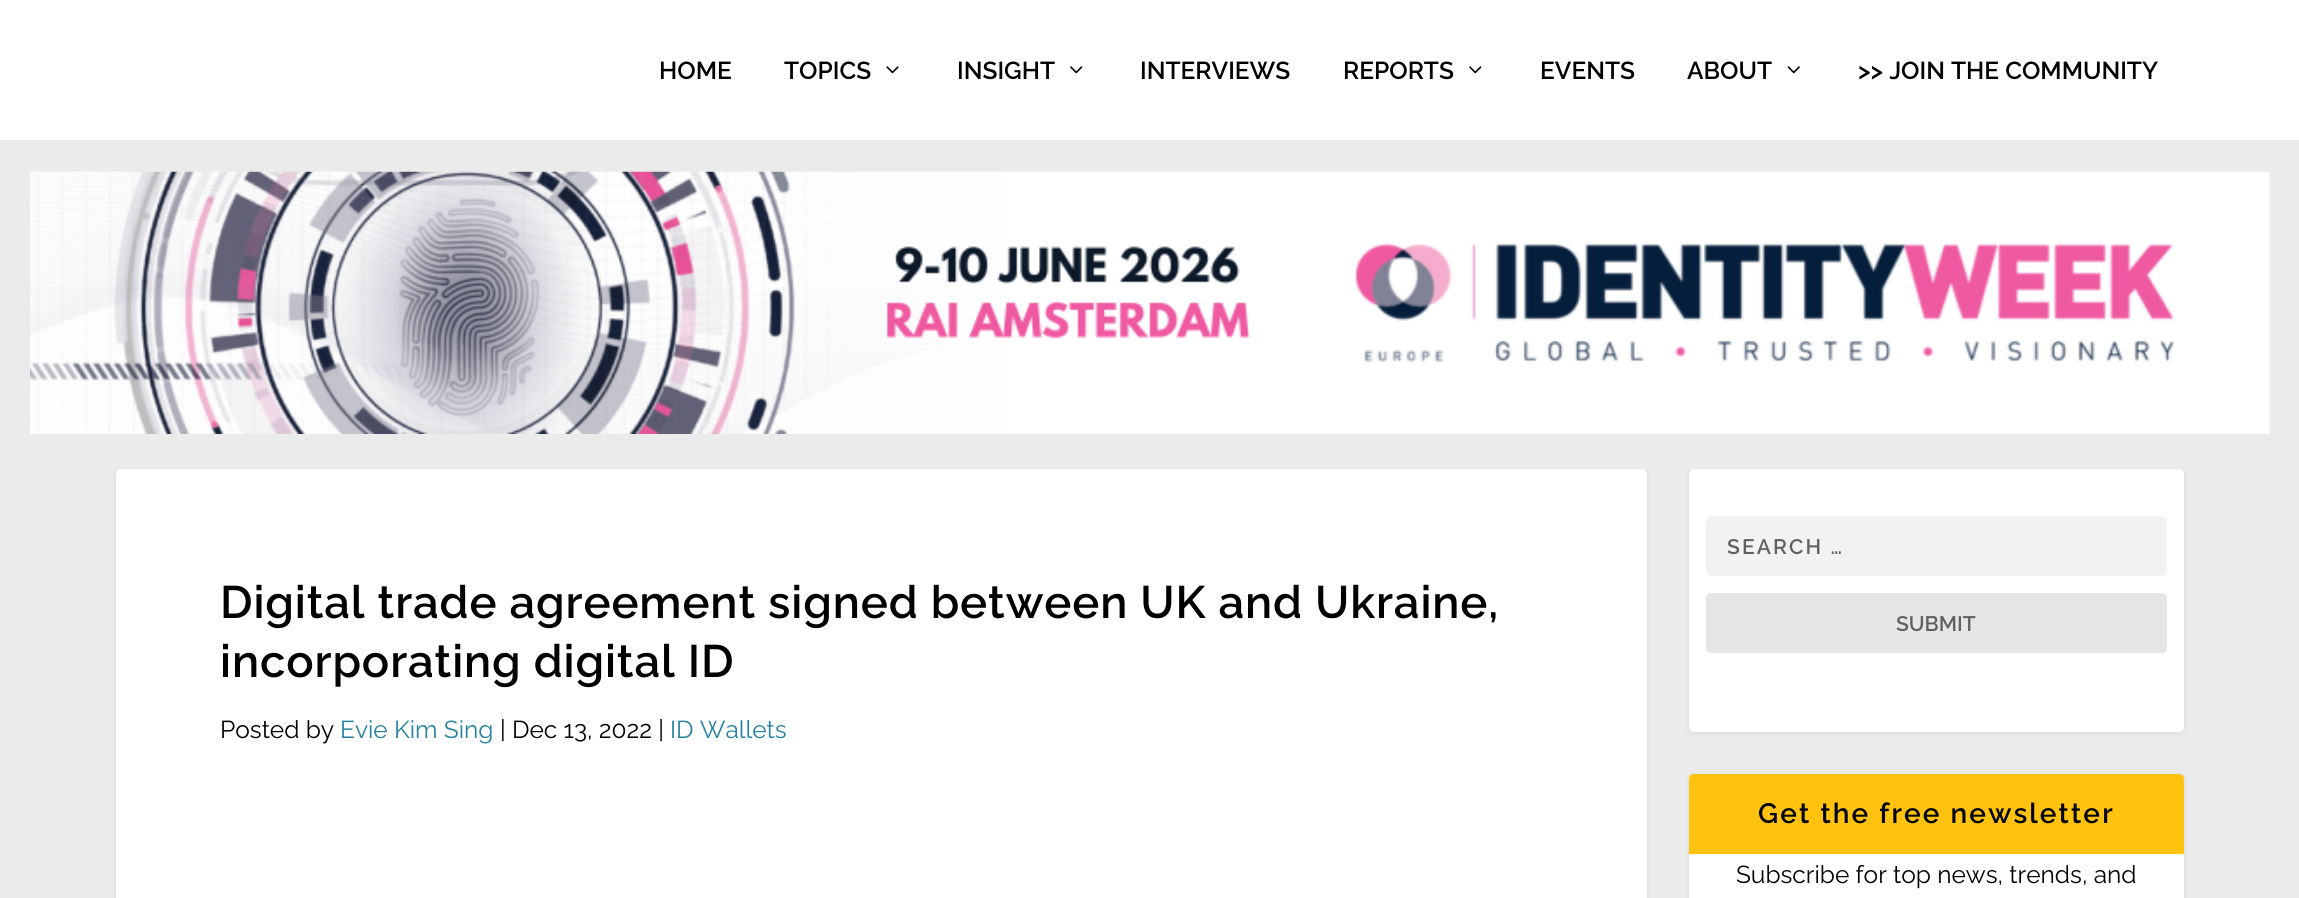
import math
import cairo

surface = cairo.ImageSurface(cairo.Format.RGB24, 2299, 898)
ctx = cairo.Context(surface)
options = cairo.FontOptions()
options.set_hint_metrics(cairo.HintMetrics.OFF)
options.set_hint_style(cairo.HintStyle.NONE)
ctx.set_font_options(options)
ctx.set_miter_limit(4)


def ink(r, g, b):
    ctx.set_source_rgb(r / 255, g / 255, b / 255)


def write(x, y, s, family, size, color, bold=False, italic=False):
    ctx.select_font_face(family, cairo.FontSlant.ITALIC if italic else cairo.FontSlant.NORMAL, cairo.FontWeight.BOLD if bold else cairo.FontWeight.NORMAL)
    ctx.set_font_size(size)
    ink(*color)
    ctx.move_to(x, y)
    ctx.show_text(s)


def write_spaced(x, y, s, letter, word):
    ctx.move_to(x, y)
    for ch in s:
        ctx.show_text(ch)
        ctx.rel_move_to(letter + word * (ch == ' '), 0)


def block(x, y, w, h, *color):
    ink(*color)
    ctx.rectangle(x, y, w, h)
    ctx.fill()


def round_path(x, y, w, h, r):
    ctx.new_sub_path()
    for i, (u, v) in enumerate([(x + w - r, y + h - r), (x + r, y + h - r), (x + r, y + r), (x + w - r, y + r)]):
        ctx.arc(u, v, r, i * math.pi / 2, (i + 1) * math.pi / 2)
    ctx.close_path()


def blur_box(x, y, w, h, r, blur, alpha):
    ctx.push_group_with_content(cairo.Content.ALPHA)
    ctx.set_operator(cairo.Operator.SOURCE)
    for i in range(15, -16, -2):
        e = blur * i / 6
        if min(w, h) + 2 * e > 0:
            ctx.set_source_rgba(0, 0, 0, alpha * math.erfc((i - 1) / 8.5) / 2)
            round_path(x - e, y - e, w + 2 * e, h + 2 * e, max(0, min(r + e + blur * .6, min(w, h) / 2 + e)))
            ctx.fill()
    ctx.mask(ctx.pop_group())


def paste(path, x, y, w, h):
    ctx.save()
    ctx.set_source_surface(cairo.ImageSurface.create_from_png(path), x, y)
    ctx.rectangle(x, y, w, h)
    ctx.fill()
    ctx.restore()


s1 = dict(family="Raleway Thin", size=24.5, color=(0, 0, 0))
s2 = dict(family="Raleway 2 Thin", size=24.5, color=(0, 0, 0))
s3 = dict(family="Raleway 2 Thin", size=24.5, color=(37, 130, 162))
s4 = dict(family="Raleway Thin", size=21, color=(97, 97, 97))

ink(235, 235, 235)
ctx.paint()
block(0, 0, 2299, 140, 255, 255, 255)
write(659, 79, "HOME", **s1)
write(784, 79, "TOPICS", **s1)
paste("pic1.png", 886, 66, 13, 8)
write(957, 79, "INSIGHT", **s1)
paste("pic2.png", 1070, 66, 13, 8)
write(1140, 79, "INTERVIEWS", **s1)
write(1343, 79, "REPORTS", **s1)
paste("pic2.png", 1469, 66, 13, 8)
write(1540, 79, "EVENTS", **s1)
write(1687, 79, "ABOUT", **s1)
paste("pic3.png", 1787, 66, 13, 8)
write(1858, 79, ">> JOIN THE COMMUNITY", **s1)
paste("pic4.png", 30, 171, 2240, 263)
ink(0, 0, 0)
blur_box(116, 471, 1531, 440, 5, 2.5, 0.1)
ink(255, 255, 255)
round_path(116, 469, 1531, 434, 5)
ctx.fill()
ctx.set_font_size(45.5)
ink(0, 0, 0)
write_spaced(220, 618, "Digital trade agreement signed between UK and Ukraine,", 0.88, 0)
write_spaced(220, 677, "incorporating digital ID", 0.88, 0)
write(220, 738, "Posted by", **s2)
write(340, 738, "Evie Kim Sing", **s3)
write(500, 738, "| Dec 13, 2022 |", **s2)
write(670, 738, "ID Wallets", **s3)
ink(0, 0, 0)
blur_box(1689, 471, 495, 262, 5, 2.5, 0.1)
ink(255, 255, 255)
round_path(1689, 469, 495, 263, 5)
ctx.fill()
ink(242, 242, 242)
round_path(1706, 516, 461, 60, 5)
ctx.fill()
ctx.select_font_face("Raleway Thin")
ctx.set_font_size(21)
ink(97, 97, 97)
write_spaced(1727, 554, "SEARCH …", 2.1, 0)
ink(230, 230, 230)
round_path(1706, 593, 461, 60, 5)
ctx.fill()
write(1896, 631, "SUBMIT", **s4)
ink(0, 0, 0)
blur_box(1689, 775, 495, 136, 5, 2.5, 0.1)
ink(255, 255, 255)
round_path(1689, 774, 495, 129, 5)
ctx.fill()
ink(255, 194, 14)
ctx.new_path()
ctx.move_to(1694, 774)
ctx.line_to(2179, 774)
ctx.curve_to(2182, 774, 2184, 776, 2184, 779)
ctx.line_to(2184, 854)
ctx.line_to(1689, 854)
ctx.line_to(1689, 779)
ctx.curve_to(1689, 776, 1691, 774, 1694, 774)
ctx.close_path()
ctx.fill()
ctx.set_font_size(28)
ink(0, 0, 0)
write_spaced(1758, 823, "Get the free newsletter", 2.1, 0)
write(1736, 883, "Subscribe for top news, trends, and", **s2)
surface.write_to_png("screenshot.png")
